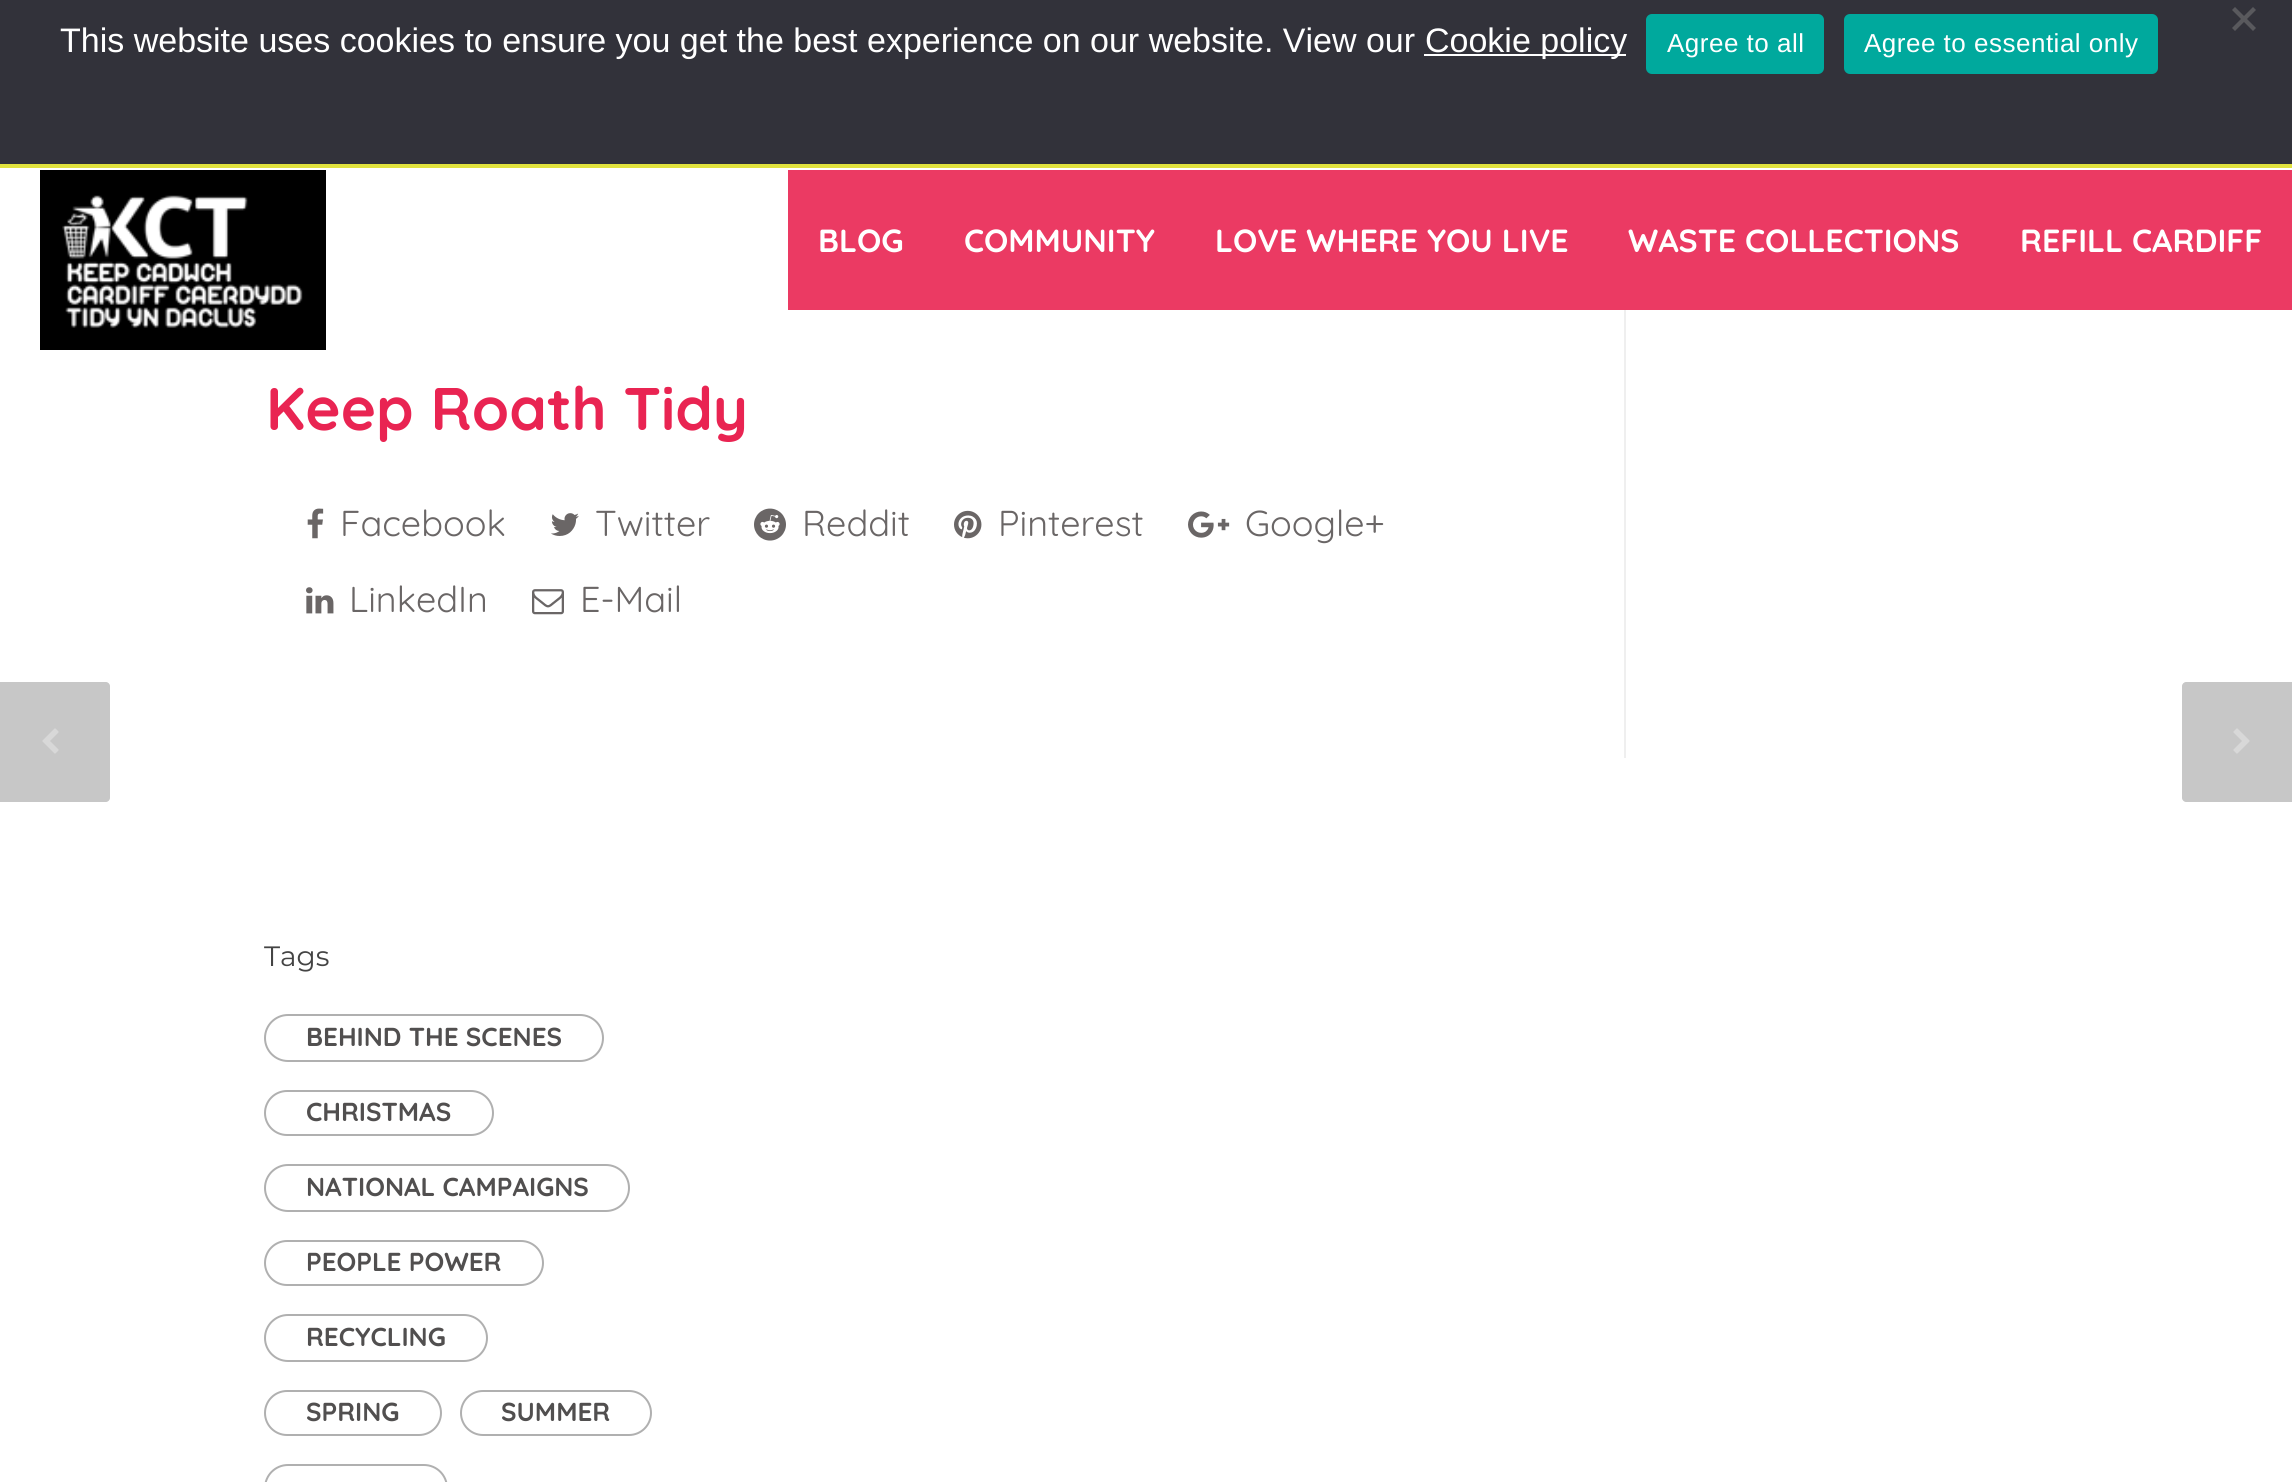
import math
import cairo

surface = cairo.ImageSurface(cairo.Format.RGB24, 2292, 1482)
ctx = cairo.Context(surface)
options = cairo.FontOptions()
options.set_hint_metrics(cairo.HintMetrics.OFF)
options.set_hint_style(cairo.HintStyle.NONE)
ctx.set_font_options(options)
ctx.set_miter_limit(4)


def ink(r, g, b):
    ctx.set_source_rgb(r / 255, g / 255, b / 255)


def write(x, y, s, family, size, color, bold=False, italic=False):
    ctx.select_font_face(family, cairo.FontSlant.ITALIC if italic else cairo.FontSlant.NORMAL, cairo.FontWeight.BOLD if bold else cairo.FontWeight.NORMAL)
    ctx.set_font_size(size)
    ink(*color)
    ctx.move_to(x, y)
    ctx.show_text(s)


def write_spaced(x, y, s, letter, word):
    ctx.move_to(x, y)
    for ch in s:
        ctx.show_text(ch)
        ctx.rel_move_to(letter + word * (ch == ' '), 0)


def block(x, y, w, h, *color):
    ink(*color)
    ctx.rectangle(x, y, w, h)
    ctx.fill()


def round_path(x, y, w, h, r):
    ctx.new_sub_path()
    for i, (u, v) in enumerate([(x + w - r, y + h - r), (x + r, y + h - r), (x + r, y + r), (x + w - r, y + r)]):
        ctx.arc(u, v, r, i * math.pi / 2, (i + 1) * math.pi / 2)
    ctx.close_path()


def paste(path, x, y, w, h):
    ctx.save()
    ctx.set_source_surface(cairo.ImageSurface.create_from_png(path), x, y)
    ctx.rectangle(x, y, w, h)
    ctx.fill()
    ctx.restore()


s1 = dict(family="Liberation Sans", size=34, color=(255, 255, 255))
s2 = dict(family="Quicksand", size=32, color=(255, 255, 255), bold=True)
s3 = dict(family="Quicksand", size=60, color=(233, 36, 82), bold=True)
s4 = dict(family="Quicksand", size=36, color=(106, 102, 102))
s5 = dict(family="Montserrat", size=28, color=(68, 68, 68))
s6 = dict(family="Quicksand", size=26, color=(81, 79, 79), bold=True)

ink(255, 255, 255)
ctx.paint()
block(1598, 170, 694, 140, 235, 58, 99)
block(0, 0, 2292, 164, 50, 50, 58)
block(0, 164, 2292, 4, 225, 226, 62)
ink(89, 89, 93)
ctx.new_path()
ctx.move_to(2253, 7)
ctx.line_to(2256, 10)
ctx.line_to(2235, 31)
ctx.line_to(2232, 28)
ctx.close_path()
ctx.fill()
ctx.new_path()
ctx.move_to(2232, 10)
ctx.line_to(2235, 7)
ctx.line_to(2256, 28)
ctx.line_to(2253, 31)
ctx.close_path()
ctx.fill()
write(60, 52, "This website uses cookies to ensure you get the best experience on our website. View our", **s1)
block(1424, 54, 202, 2, 255, 255, 255)
write(1425, 52, "Cookie policy", **s1)
ink(0, 169, 157)
round_path(1646, 14, 178, 60, 6)
ctx.fill()
ctx.set_font_size(26)
ink(255, 255, 255)
write_spaced(1667, 52, "Agree to all", 0.5, 0)
ink(0, 169, 157)
round_path(1844, 14, 314, 60, 6)
ctx.fill()
ink(255, 255, 255)
write_spaced(1864, 52, "Agree to essential only", 0.5, 0)
block(40, 170, 286, 180, 0, 0, 0)
paste("pic1.png", 62, 195, 241, 133)
block(788, 170, 810, 140, 235, 58, 99)
write(818, 252, "BLOG", **s2)
write(964, 252, "COMMUNITY", **s2)
write(1215, 252, "LOVE WHERE YOU LIVE", **s2)
write(1628, 252, "WASTE COLLECTIONS", **s2)
write(2020, 252, "REFILL CARDIFF", **s2)
block(1624, 310, 2, 448, 239, 239, 239)
write(266, 430, "Keep Roath Tidy", **s3)
paste("pic2.png", 307, 508, 17, 31)
write(340, 536, "Facebook", **s4)
paste("pic3.png", 551, 513, 28, 23)
write(595, 536, "Twitter", **s4)
paste("pic4.png", 754, 508, 32, 33)
write(802, 536, "Reddit", **s4)
paste("pic5.png", 954, 510, 28, 29)
write(998, 536, "Pinterest", **s4)
paste("pic6.png", 1188, 511, 42, 27)
write(1245, 536, "Google+", **s4)
paste("pic7.png", 306, 587, 28, 27)
write(349, 612, "LinkedIn", **s4)
paste("pic8.png", 532, 589, 32, 26)
write(580, 612, "E-Mail", **s4)
ink(199, 199, 199)
ctx.new_path()
ctx.move_to(-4, 682)
ctx.line_to(106, 682)
ctx.curve_to(108, 682, 110, 684, 110, 686)
ctx.line_to(110, 798)
ctx.curve_to(110, 800, 108, 802, 106, 802)
ctx.line_to(-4, 802)
ctx.close_path()
ctx.fill()
paste("pic9.png", 42, 728, 17, 26)
ctx.new_path()
ctx.move_to(2186, 682)
ctx.line_to(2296, 682)
ctx.line_to(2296, 802)
ctx.line_to(2186, 802)
ctx.curve_to(2184, 802, 2182, 800, 2182, 798)
ctx.line_to(2182, 686)
ctx.curve_to(2182, 684, 2184, 682, 2186, 682)
ctx.close_path()
ctx.fill()
paste("pic10.png", 2233, 728, 17, 26)
write(264, 966, "Tags", **s5)
round_path(265, 1015, 338, 46, 23)
ink(176, 176, 176)
ctx.stroke()
write(306, 1046, "BEHIND THE SCENES", **s6)
round_path(265, 1091, 228, 44, 22)
ink(176, 176, 176)
ctx.stroke()
write(306, 1121, "CHRISTMAS", **s6)
round_path(265, 1165, 364, 46, 23)
ink(176, 176, 176)
ctx.stroke()
write(306, 1196, "NATIONAL CAMPAIGNS", **s6)
round_path(265, 1241, 278, 44, 22)
ink(176, 176, 176)
ctx.stroke()
write(306, 1271, "PEOPLE POWER", **s6)
round_path(265, 1315, 222, 46, 23)
ink(176, 176, 176)
ctx.stroke()
write(306, 1346, "RECYCLING", **s6)
round_path(265, 1391, 176, 44, 22)
ink(176, 176, 176)
ctx.stroke()
write(306, 1421, "SPRING", **s6)
round_path(461, 1391, 190, 44, 22)
ink(176, 176, 176)
ctx.stroke()
write(501, 1421, "SUMMER", **s6)
round_path(265, 1465, 182, 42, 23)
ink(176, 176, 176)
ctx.stroke()
surface.write_to_png("screenshot.png")
